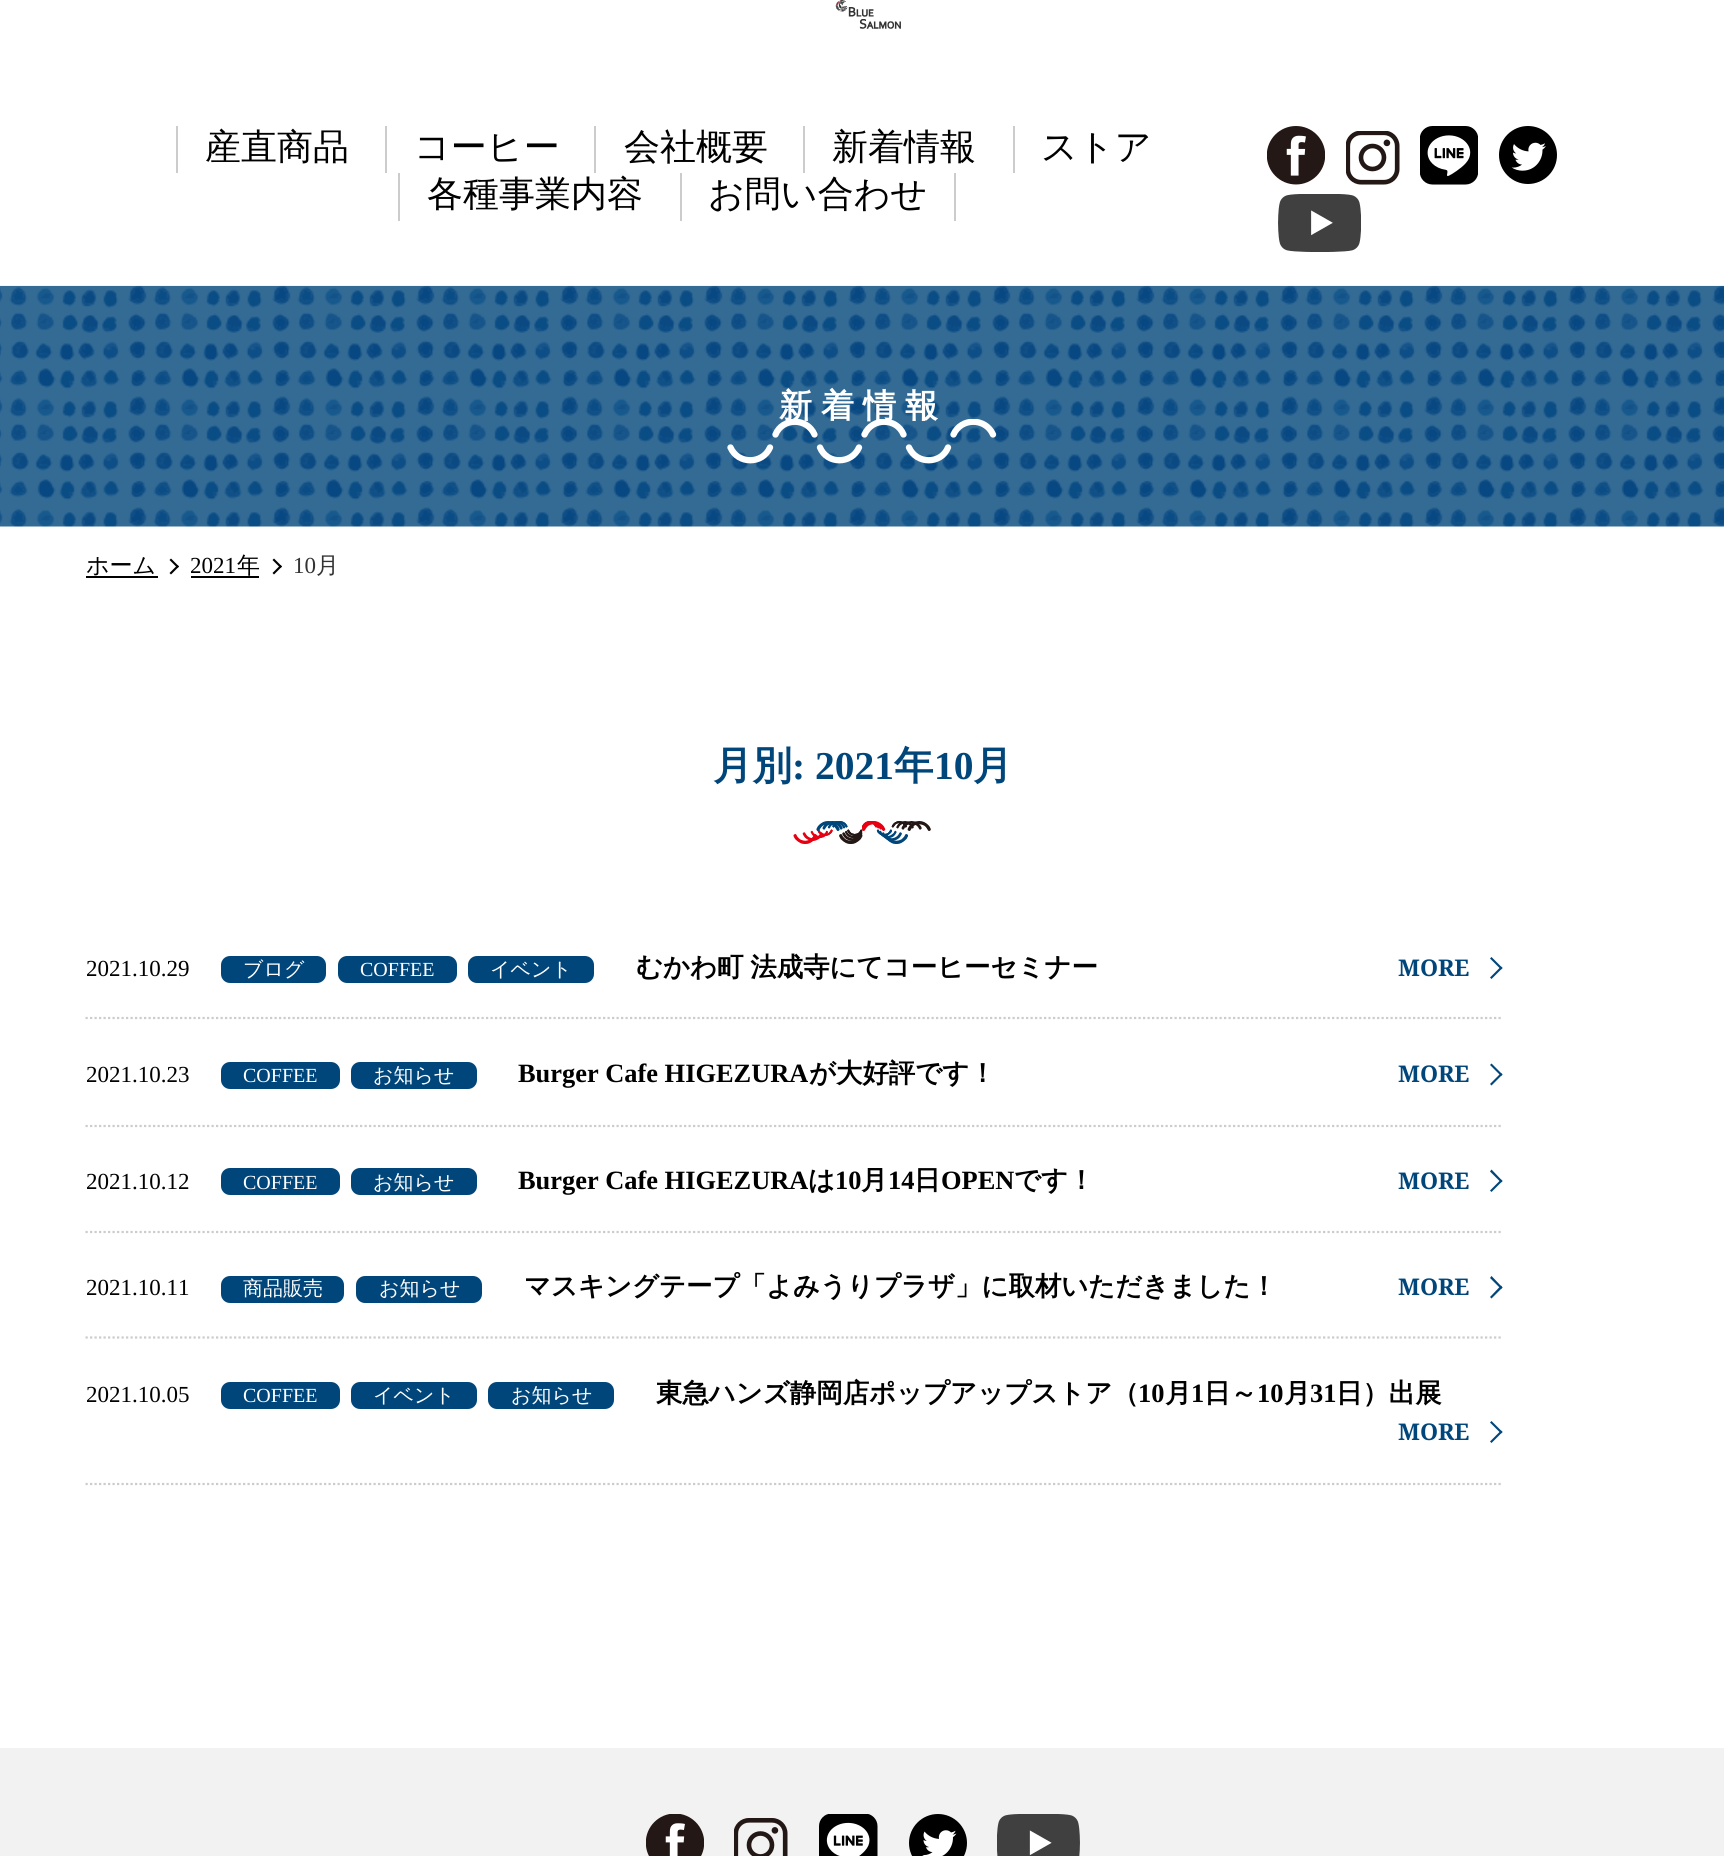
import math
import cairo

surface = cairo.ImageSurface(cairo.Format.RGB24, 1724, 1856)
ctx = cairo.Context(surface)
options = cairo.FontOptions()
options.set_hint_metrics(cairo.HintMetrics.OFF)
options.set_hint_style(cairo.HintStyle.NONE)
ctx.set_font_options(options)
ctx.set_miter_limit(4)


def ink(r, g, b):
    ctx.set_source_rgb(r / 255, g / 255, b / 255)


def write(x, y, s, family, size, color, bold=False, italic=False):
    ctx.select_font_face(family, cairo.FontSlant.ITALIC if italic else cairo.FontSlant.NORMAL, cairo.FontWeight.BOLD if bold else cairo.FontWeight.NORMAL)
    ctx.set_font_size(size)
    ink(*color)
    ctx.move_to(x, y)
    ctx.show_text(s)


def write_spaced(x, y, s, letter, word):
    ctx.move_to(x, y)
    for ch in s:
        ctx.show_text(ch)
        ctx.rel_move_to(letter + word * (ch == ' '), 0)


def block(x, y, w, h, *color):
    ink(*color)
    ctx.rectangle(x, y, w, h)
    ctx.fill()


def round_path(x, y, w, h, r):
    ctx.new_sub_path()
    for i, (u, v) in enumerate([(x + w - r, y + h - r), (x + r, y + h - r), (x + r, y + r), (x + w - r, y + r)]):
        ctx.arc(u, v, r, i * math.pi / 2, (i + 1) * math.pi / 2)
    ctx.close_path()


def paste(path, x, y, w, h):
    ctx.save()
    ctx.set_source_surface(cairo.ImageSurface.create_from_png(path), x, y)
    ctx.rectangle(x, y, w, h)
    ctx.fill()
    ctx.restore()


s1 = dict(family="WenQuanYi Zen Hei Medium", size=36, color=(0, 0, 0))
s2 = dict(family="WenQuanYi Zen Hei Medium", size=23, color=(0, 0, 0))
s3 = dict(family="Liberation Serif", size=23, color=(0, 0, 0))
s4 = dict(family="Liberation Serif", size=23, color=(51, 51, 51))
s5 = dict(family="WenQuanYi Zen Hei Medium", size=23, color=(51, 51, 51))
s6 = dict(family="WenQuanYi Zen Hei", size=39.5, color=(0, 70, 123), bold=True)
s7 = dict(family="Liberation Serif", size=39.5, color=(0, 70, 123), bold=True)
s8 = dict(family="WenQuanYi Zen Hei Medium", size=20, color=(255, 255, 255))
s9 = dict(family="Liberation Serif", size=20, color=(255, 255, 255))
s10 = dict(family="Noto Serif", size=23, color=(0, 70, 123), bold=True)
s11 = dict(family="Liberation Serif", size=26.4, color=(0, 0, 0), bold=True)
s12 = dict(family="WenQuanYi Zen Hei", size=26.4, color=(0, 0, 0), bold=True)

ink(255, 255, 255)
ctx.paint()
paste("pic1.png", 835, 0, 66, 29)
block(176, 126, 2, 47, 204, 204, 204)
write(205, 159, "産直商品", **s1)
block(385, 126, 2, 47, 204, 204, 204)
write(414, 159, "コーヒー", **s1)
block(594, 126, 2, 47, 204, 204, 204)
write(624, 159, "会社概要", **s1)
block(803, 126, 2, 47, 204, 204, 204)
write(832, 159, "新着情報", **s1)
block(1013, 126, 2, 47, 204, 204, 204)
write(1041, 159, "ストア", **s1)
block(398, 173, 2, 48, 204, 204, 204)
write(427, 206, "各種事業内容", **s1)
block(954, 173, 2, 48, 204, 204, 204)
block(680, 173, 2, 48, 204, 204, 204)
write(708, 206, "お問い合わせ", **s1)
paste("pic2.png", 1267, 126, 58, 59)
paste("pic3.png", 1346, 131, 54, 54)
paste("pic4.png", 1420, 126, 58, 59)
paste("pic5.png", 1499, 126, 58, 58)
paste("pic6.png", 1278, 194, 83, 58)
paste("pic7.png", 0, 285, 1724, 242)
ctx.select_font_face("WenQuanYi Zen Hei", cairo.FontSlant.NORMAL, cairo.FontWeight.BOLD)
ctx.set_font_size(33)
ink(255, 255, 255)
write_spaced(779, 417, "新着情報", 9, 0)
ctx.new_path()
ctx.move_to(770, 447.5)
ctx.curve_to(762.5, 464.5, 738, 464.5, 730.5, 447.5)
ctx.set_line_width(6.3)
ctx.set_line_cap(cairo.LineCap.ROUND)
ctx.stroke()
ctx.save()
ctx.rectangle(727, 419, 270, 45)
ctx.clip()
ctx.new_path()
ctx.move_to(775.5, 434.5)
ctx.curve_to(782.5, 417.5, 807, 417.5, 814.5, 434.5)
ctx.stroke()
ctx.restore()
ctx.new_path()
ctx.move_to(859, 447.5)
ctx.curve_to(851.5, 464.5, 827, 464.5, 820, 447.5)
ctx.stroke()
ctx.save()
ctx.rectangle(727, 419, 270, 45)
ctx.clip()
ctx.new_path()
ctx.move_to(864.5, 434.5)
ctx.curve_to(872, 417.5, 896.5, 417.5, 903.5, 434.5)
ctx.stroke()
ctx.restore()
ctx.new_path()
ctx.move_to(948, 447.5)
ctx.curve_to(941, 464.5, 916.5, 464.5, 909, 447.5)
ctx.stroke()
ctx.save()
ctx.rectangle(727, 419, 270, 45)
ctx.clip()
ctx.new_path()
ctx.move_to(953.5, 434.5)
ctx.curve_to(961, 417.5, 985.5, 417.5, 993, 434.5)
ctx.stroke()
ctx.restore()
write(86, 573, "ホーム", **s2)
block(86, 576, 72, 2, 0, 0, 0)
ctx.new_path()
ctx.move_to(171, 558.5)
ctx.line_to(179, 566.5)
ctx.line_to(177.5, 568)
ctx.line_to(169.5, 560)
ctx.close_path()
ctx.fill()
ctx.new_path()
ctx.move_to(177.5, 565)
ctx.line_to(179, 566.5)
ctx.line_to(171, 574.5)
ctx.line_to(169.5, 573)
ctx.close_path()
ctx.fill()
write(190, 573, "2021", **s3)
block(191, 576, 68, 2, 0, 0, 0)
write(237, 573, "年", **s2)
ctx.new_path()
ctx.move_to(274, 558.5)
ctx.line_to(282, 566.5)
ctx.line_to(280.5, 568)
ctx.line_to(272.5, 560)
ctx.close_path()
ctx.fill()
ctx.new_path()
ctx.move_to(280.5, 565)
ctx.line_to(282, 566.5)
ctx.line_to(274, 574.5)
ctx.line_to(272.5, 573)
ctx.close_path()
ctx.fill()
write(293, 573, "10", **s4)
write(316, 573, "月", **s5)
write(713, 779, "月別", **s6)
write(792, 779, ": 2021", **s7)
write(894, 779, "年", **s6)
write(934, 779, "10", **s7)
write(973, 779, "月", **s6)
paste("pic8.png", 793, 821, 138, 23)
ctx.new_path()
ctx.move_to(85.5, 1018)
ctx.line_to(1503, 1018)
ink(204, 204, 204)
ctx.set_line_width(2.2)
ctx.set_line_cap(cairo.LineCap.BUTT)
ctx.set_dash([2.25, 2.25])
ctx.stroke()
write(86, 976, "2021.10.29", **s3)
ink(0, 70, 123)
round_path(221, 956, 105, 27, 9)
ctx.fill()
write(243, 976, "ブログ", **s8)
ink(0, 70, 123)
round_path(338, 956, 119, 27, 9)
ctx.fill()
write(360, 976, "COFFEE", **s9)
ink(0, 70, 123)
round_path(468, 956, 126, 27, 9)
ctx.fill()
write(490, 976, "イベント", **s8)
ctx.select_font_face("WenQuanYi Zen Hei", cairo.FontSlant.NORMAL, cairo.FontWeight.BOLD)
ctx.set_font_size(26.4)
ink(0, 0, 0)
write_spaced(636, 976, "むかわ町 法成寺にてコーヒーセミナー", 0, -1)
write(1398, 976, "MORE", **s10)
ctx.new_path()
ctx.move_to(1491.5, 957)
ctx.line_to(1502.5, 968)
ctx.line_to(1501, 969.5)
ctx.line_to(1490, 958.5)
ctx.close_path()
ctx.fill()
ctx.new_path()
ctx.move_to(1501, 966.5)
ctx.line_to(1502.5, 968)
ctx.line_to(1491.5, 979)
ctx.line_to(1490, 977.5)
ctx.close_path()
ctx.fill()
ctx.new_path()
ctx.move_to(85.5, 1126)
ctx.line_to(1503, 1126)
ink(204, 204, 204)
ctx.stroke()
write(86, 1082, "2021.10.23", **s3)
ink(0, 70, 123)
round_path(221, 1062, 119, 27, 9)
ctx.fill()
write(243, 1082, "COFFEE", **s9)
ink(0, 70, 123)
round_path(351, 1062, 126, 27, 9)
ctx.fill()
write(373, 1082, "お知らせ", **s8)
write(518, 1082, "Burger Cafe HIGEZURA", **s11)
write(809, 1082, "が大好評です！", **s12)
write(1398, 1082, "MORE", **s10)
ctx.new_path()
ctx.move_to(1491.5, 1063.5)
ctx.line_to(1502.5, 1074.5)
ctx.line_to(1501, 1076)
ctx.line_to(1490, 1065)
ctx.close_path()
ctx.fill()
ctx.new_path()
ctx.move_to(1501, 1073)
ctx.line_to(1502.5, 1074.5)
ctx.line_to(1491.5, 1085.5)
ctx.line_to(1490, 1084)
ctx.close_path()
ctx.fill()
ctx.new_path()
ctx.move_to(85.5, 1232)
ctx.line_to(1503, 1232)
ink(204, 204, 204)
ctx.stroke()
write(86, 1189, "2021.10.12", **s3)
ink(0, 70, 123)
round_path(221, 1168, 119, 27, 9)
ctx.fill()
write(243, 1189, "COFFEE", **s9)
ink(0, 70, 123)
round_path(351, 1168, 126, 27, 9)
ctx.fill()
write(373, 1189, "お知らせ", **s8)
write(518, 1189, "Burger Cafe HIGEZURA", **s11)
write(808, 1189, "は", **s12)
write(835, 1189, "10", **s11)
write(861, 1189, "月", **s12)
write(888, 1189, "14", **s11)
write(914, 1189, "日", **s12)
write(941, 1189, "OPEN", **s11)
write(1014, 1189, "です！", **s12)
write(1398, 1189, "MORE", **s10)
ctx.new_path()
ctx.move_to(1491.5, 1169.5)
ctx.line_to(1502.5, 1181)
ctx.line_to(1501, 1182.5)
ctx.line_to(1490, 1171.5)
ctx.close_path()
ctx.fill()
ctx.new_path()
ctx.move_to(1501, 1179.5)
ctx.line_to(1502.5, 1181)
ctx.line_to(1491.5, 1192)
ctx.line_to(1490, 1190.5)
ctx.close_path()
ctx.fill()
ctx.new_path()
ctx.move_to(85.5, 1337.5)
ctx.line_to(1503, 1337.5)
ink(204, 204, 204)
ctx.stroke()
write(86, 1295, "2021.10.11", **s3)
ink(0, 70, 123)
round_path(221, 1276, 123, 27, 9)
ctx.fill()
write(243, 1295, "商品販売", **s8)
ink(0, 70, 123)
round_path(356, 1276, 126, 27, 9)
ctx.fill()
write(379, 1295, "お知らせ", **s8)
write(524, 1295, "マスキングテープ「よみうりプラザ」に取材いただきました！", **s12)
write(1398, 1295, "MORE", **s10)
ctx.new_path()
ctx.move_to(1491.5, 1276)
ctx.line_to(1502.5, 1287.5)
ctx.line_to(1501, 1289)
ctx.line_to(1490, 1278)
ctx.close_path()
ctx.fill()
ctx.new_path()
ctx.move_to(1501, 1285.5)
ctx.line_to(1502.5, 1287.5)
ctx.line_to(1491.5, 1298.5)
ctx.line_to(1490, 1297)
ctx.close_path()
ctx.fill()
ctx.new_path()
ctx.move_to(85.5, 1484)
ctx.line_to(1503, 1484)
ink(204, 204, 204)
ctx.stroke()
write(86, 1402, "2021.10.05", **s3)
ink(0, 70, 123)
round_path(221, 1382, 119, 27, 9)
ctx.fill()
write(243, 1402, "COFFEE", **s9)
ink(0, 70, 123)
round_path(351, 1382, 126, 27, 9)
ctx.fill()
write(373, 1402, "イベント", **s8)
ink(0, 70, 123)
round_path(488, 1382, 126, 27, 9)
ctx.fill()
write(511, 1402, "お知らせ", **s8)
write(656, 1402, "東急ハンズ静岡店ポップアップストア（", **s12)
write(1138, 1402, "10", **s11)
write(1165, 1402, "月", **s12)
write(1191, 1402, "1", **s11)
write(1204, 1402, "日～", **s12)
write(1257, 1402, "10", **s11)
write(1284, 1402, "月", **s12)
write(1310, 1402, "31", **s11)
write(1336, 1402, "日）出展", **s12)
write(1398, 1440, "MORE", **s10)
ctx.new_path()
ctx.move_to(1491.5, 1421)
ctx.line_to(1502.5, 1432)
ctx.line_to(1501, 1433.5)
ctx.line_to(1490, 1422.5)
ctx.close_path()
ctx.fill()
ctx.new_path()
ctx.move_to(1501, 1430.5)
ctx.line_to(1502.5, 1432)
ctx.line_to(1491.5, 1443)
ctx.line_to(1490, 1441.5)
ctx.close_path()
ctx.fill()
block(0, 1748, 1724, 108, 242, 242, 242)
paste("pic9.png", 646, 1814, 58, 42)
paste("pic10.png", 734, 1818, 54, 38)
paste("pic11.png", 819, 1814, 59, 42)
paste("pic12.png", 909, 1814, 58, 42)
paste("pic13.png", 997, 1814, 83, 42)
surface.write_to_png("screenshot.png")
